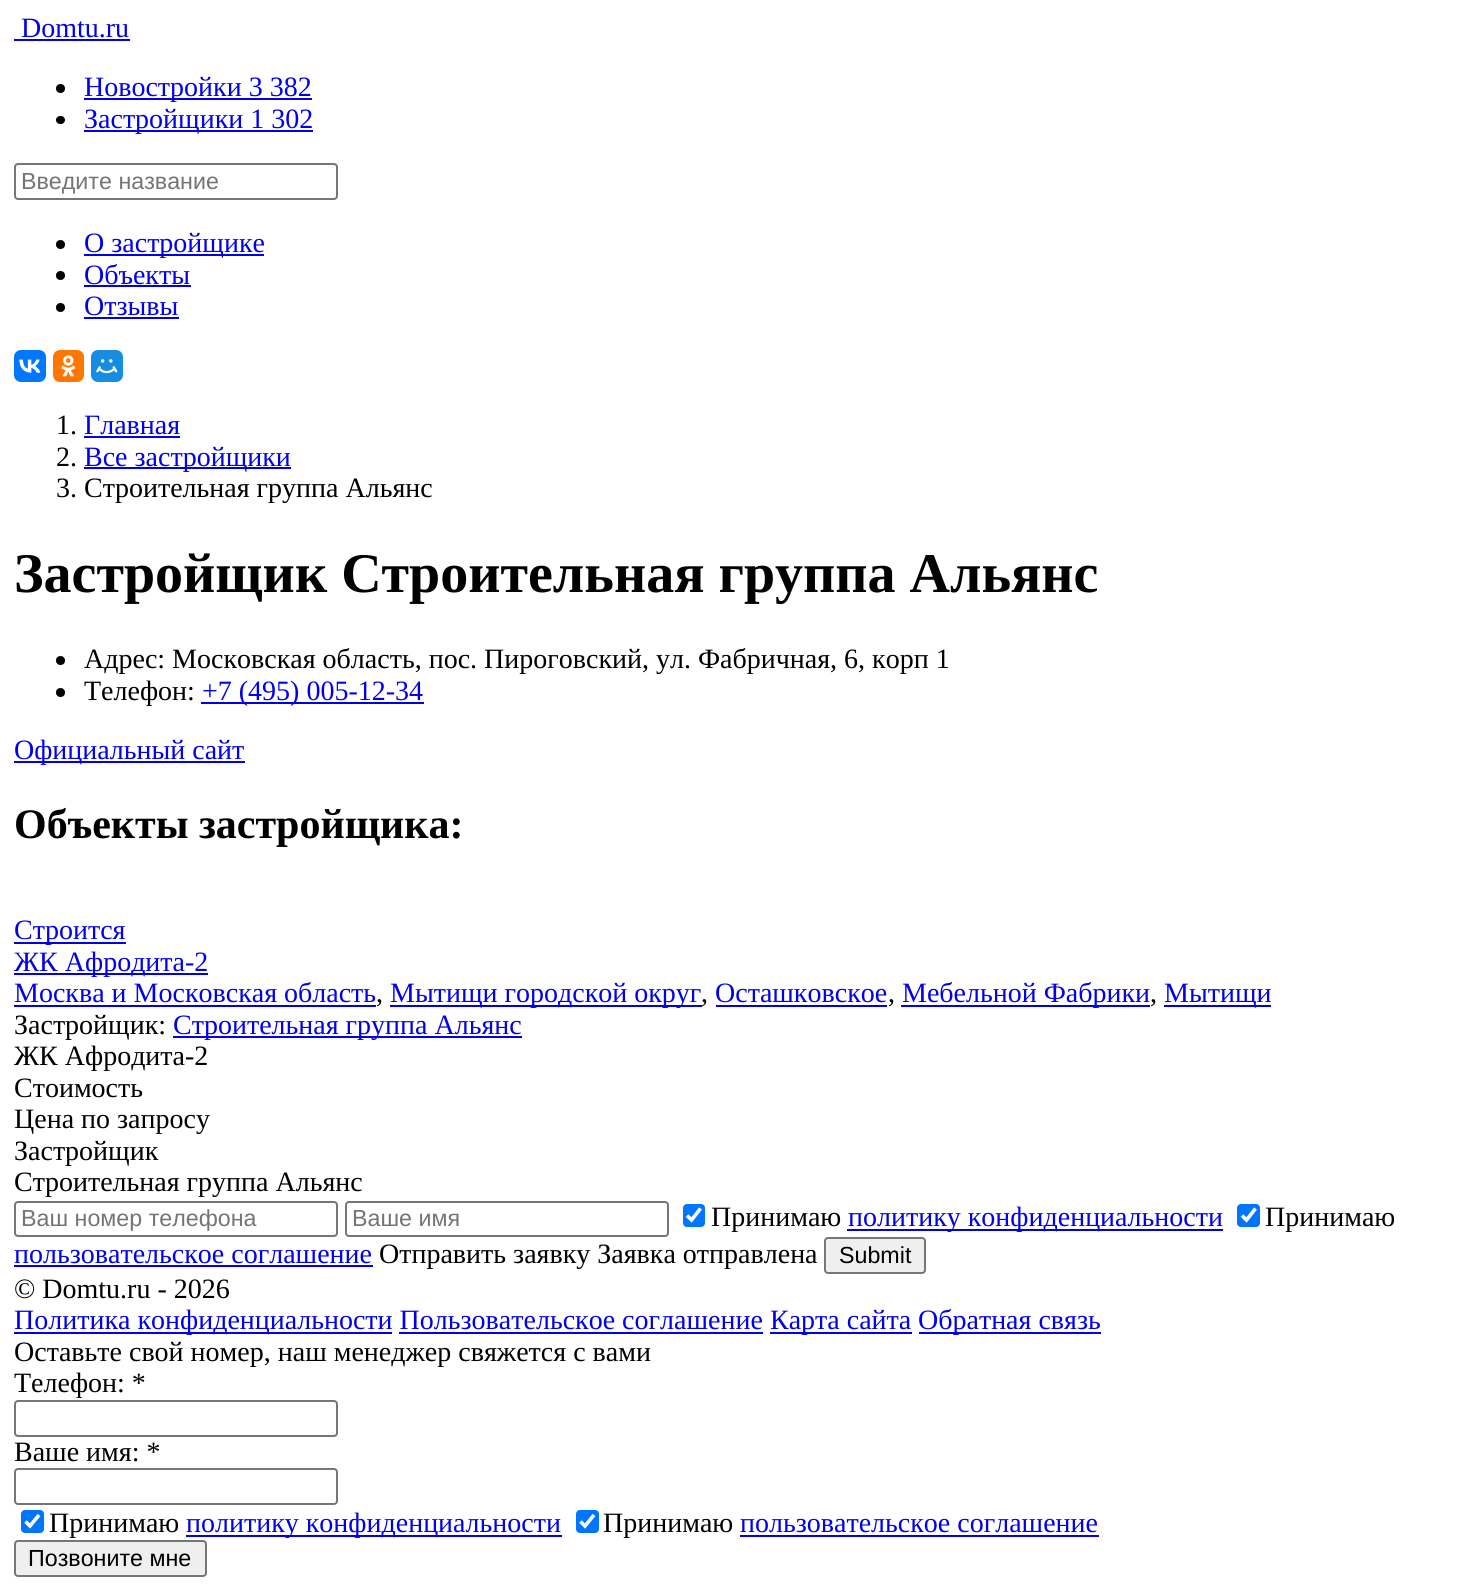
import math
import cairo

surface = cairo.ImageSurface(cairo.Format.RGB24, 1479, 1587)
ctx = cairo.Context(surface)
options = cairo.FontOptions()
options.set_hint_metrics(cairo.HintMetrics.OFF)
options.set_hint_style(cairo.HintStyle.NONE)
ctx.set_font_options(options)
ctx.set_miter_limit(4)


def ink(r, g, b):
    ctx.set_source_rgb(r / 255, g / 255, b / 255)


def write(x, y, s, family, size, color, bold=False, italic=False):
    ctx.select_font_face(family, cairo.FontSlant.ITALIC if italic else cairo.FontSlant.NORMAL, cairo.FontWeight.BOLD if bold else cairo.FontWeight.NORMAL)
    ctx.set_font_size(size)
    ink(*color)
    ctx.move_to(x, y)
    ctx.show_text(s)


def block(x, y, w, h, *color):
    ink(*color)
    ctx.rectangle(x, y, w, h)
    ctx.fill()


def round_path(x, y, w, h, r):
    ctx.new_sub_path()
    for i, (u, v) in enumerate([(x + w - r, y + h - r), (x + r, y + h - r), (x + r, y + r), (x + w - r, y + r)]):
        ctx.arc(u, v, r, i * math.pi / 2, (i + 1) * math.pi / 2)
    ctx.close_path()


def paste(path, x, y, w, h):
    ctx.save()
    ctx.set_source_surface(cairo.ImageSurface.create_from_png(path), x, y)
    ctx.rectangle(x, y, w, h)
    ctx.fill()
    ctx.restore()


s1 = dict(family="Liberation Serif", size=28, color=(0, 0, 238))
s2 = dict(family="Liberation Sans", size=23.25, color=(117, 117, 117))
s3 = dict(family="Liberation Serif", size=28, color=(0, 0, 0))
s4 = dict(family="Liberation Serif", size=56, color=(0, 0, 0), bold=True)
s5 = dict(family="Liberation Serif", size=42, color=(0, 0, 0), bold=True)
s6 = dict(family="Liberation Sans", size=23.25, color=(0, 0, 0))

ink(255, 255, 255)
ctx.paint()
write(21, 37, "Domtu.ru", **s1)
block(14, 39, 116, 2, 0, 0, 238)
ink(0, 0, 0)
ctx.new_path()
ctx.arc(60.5, 88.5, 4.5, 0, 2 * math.pi)
ctx.fill()
block(84, 98, 228, 2, 0, 0, 238)
write(84, 96, "Новостройки 3 382", **s1)
ink(0, 0, 0)
round_path(56, 116, 9, 8, 4)
ctx.fill()
block(84, 130, 229, 2, 0, 0, 238)
write(84, 128, "Застройщики 1 302", **s1)
round_path(15, 164, 322, 35, 3)
ink(118, 118, 118)
ctx.stroke()
write(21, 189, "Введите название", **s2)
ink(0, 0, 0)
ctx.new_path()
ctx.arc(60.5, 244.5, 4.5, 0, 2 * math.pi)
ctx.fill()
block(84, 254, 180, 2, 0, 0, 238)
write(84, 252, "О застройщике", **s1)
ink(0, 0, 0)
ctx.new_path()
ctx.arc(60.5, 275.5, 4.5, 0, 2 * math.pi)
ctx.fill()
write(84, 284, "Объекты", **s1)
block(84, 285, 107, 2, 0, 0, 238)
ink(0, 0, 0)
ctx.new_path()
ctx.arc(60.5, 307.5, 4.5, 0, 2 * math.pi)
ctx.fill()
write(84, 315, "Отзывы", **s1)
block(84, 317, 95, 2, 0, 0, 238)
ink(0, 119, 255)
round_path(14, 350, 32, 32, 7)
ctx.fill()
paste("pic1.png", 19, 359, 22, 14)
ink(255, 119, 0)
round_path(53, 350, 31, 32, 7)
ctx.fill()
paste("pic2.png", 61, 355, 15, 22)
ink(22, 141, 226)
round_path(91, 350, 32, 32, 7)
ctx.fill()
paste("pic3.png", 96, 359, 22, 15)
write(56, 434, "1.", **s3)
write(84, 434, "Главная", **s1)
block(84, 436, 96, 2, 0, 0, 238)
write(56, 466, "2.", **s3)
block(84, 467, 207, 2, 0, 0, 238)
write(84, 466, "Все застройщики", **s1)
write(56, 497, "3. Строительная группа Альянс", **s3)
write(14, 592, "Застройщик Строительная группа Альянс", **s4)
ctx.new_path()
ctx.arc(60.5, 660.5, 4.5, 0, 2 * math.pi)
ctx.fill()
write(84, 668, "Адрес: Московская область, пос. Пироговский, ул. Фабричная, 6, корп 1", **s3)
ctx.new_path()
ctx.arc(60.5, 692.5, 4.5, 0, 2 * math.pi)
ctx.fill()
write(84, 700, "Телефон:", **s3)
block(201, 702, 223, 2, 0, 0, 238)
write(202, 700, "+7 (495) 005-12-34", **s1)
block(14, 761, 231, 2, 0, 0, 238)
write(14, 759, "Официальный сайт", **s1)
write(14, 838, "Объекты застройщика:", **s5)
block(14, 942, 112, 2, 0, 0, 238)
write(14, 939, "Строится", **s1)
block(14, 973, 194, 2, 0, 0, 238)
write(14, 971, "ЖК Афродита-2", **s1)
write(14, 1002, "Москва и Московская область", **s1)
block(14, 1005, 362, 2, 0, 0, 238)
write(376, 1002, ",", **s3)
block(390, 1005, 312, 2, 0, 0, 238)
write(390, 1002, "Мытищи городской округ", **s1)
write(701, 1002, ",", **s3)
write(715, 1002, "Осташковское", **s1)
block(716, 1005, 171, 2, 0, 0, 238)
write(888, 1002, ",", **s3)
block(901, 1005, 249, 2, 0, 0, 238)
write(902, 1002, "Мебельной Фабрики", **s1)
write(1150, 1002, ",", **s3)
block(1164, 1005, 107, 2, 0, 0, 238)
write(1164, 1002, "Мытищи", **s1)
write(14, 1034, "Застройщик:", **s3)
block(173, 1036, 349, 2, 0, 0, 238)
write(173, 1034, "Строительная группа Альянс", **s1)
write(14, 1065, "ЖК Афродита-2", **s3)
write(14, 1097, "Стоимость", **s3)
write(14, 1128, "Цена по запросу", **s3)
write(14, 1160, "Застройщик", **s3)
write(14, 1191, "Строительная группа Альянс", **s3)
ink(0, 117, 255)
round_path(683, 1204, 22, 23, 4)
ctx.fill()
ctx.new_path()
ctx.move_to(687, 1215.5)
ctx.line_to(691.5, 1220)
ctx.line_to(700.5, 1208.5)
ink(255, 255, 255)
ctx.set_line_width(3.6)
ctx.stroke()
write(711, 1226, "Принимаю", **s3)
block(847, 1229, 376, 2, 0, 0, 238)
write(848, 1226, "политику конфиденциальности", **s1)
ink(0, 117, 255)
round_path(1237, 1204, 23, 23, 4)
ctx.fill()
ctx.new_path()
ctx.move_to(1242, 1215.5)
ctx.line_to(1246.5, 1220)
ctx.line_to(1255.5, 1208.5)
ink(255, 255, 255)
ctx.stroke()
write(1265, 1226, "Принимаю", **s3)
write(14, 1263, "пользовательское соглашение", **s1)
block(14, 1265, 359, 2, 0, 0, 238)
round_path(15, 1202, 322, 34, 3)
ink(118, 118, 118)
ctx.set_line_width(2)
ctx.stroke()
write(21, 1226, "Ваш номер телефона", **s2)
round_path(346, 1202, 322, 34, 3)
ink(118, 118, 118)
ctx.stroke()
write(352, 1226, "Ваше имя", **s2)
write(379, 1263, "Отправить заявку Заявка отправлена", **s3)
ink(239, 239, 239)
round_path(825, 1238, 100, 35, 3)
ctx.fill_preserve()
ink(118, 118, 118)
ctx.stroke()
write(839, 1263, "Submit", **s6)
write(14, 1298, "© Domtu.ru - 2026", **s3)
block(14, 1332, 378, 2, 0, 0, 238)
write(14, 1329, "Политика конфиденциальности Пользовательское соглашение", **s1)
block(770, 1332, 142, 2, 0, 0, 238)
write(770, 1329, "Карта сайта", **s1)
block(919, 1332, 182, 2, 0, 0, 238)
write(918, 1329, "Обратная связь", **s1)
block(399, 1332, 364, 2, 0, 0, 238)
write(14, 1361, "Оставьте свой номер, наш менеджер свяжется с вами", **s3)
write(14, 1392, "Телефон: *", **s3)
round_path(15, 1401, 322, 35, 3)
ink(118, 118, 118)
ctx.stroke()
write(14, 1461, "Ваше имя: *", **s3)
round_path(15, 1469, 322, 35, 3)
ink(118, 118, 118)
ctx.stroke()
ink(0, 117, 255)
round_path(21, 1510, 23, 23, 4)
ctx.fill()
ctx.new_path()
ctx.move_to(25.5, 1521.5)
ctx.line_to(30, 1526)
ctx.line_to(39, 1515)
ink(255, 255, 255)
ctx.set_line_width(3.6)
ctx.stroke()
write(49, 1532, "Принимаю", **s3)
block(186, 1535, 376, 2, 0, 0, 238)
write(186, 1532, "политику конфиденциальности", **s1)
ink(0, 117, 255)
round_path(576, 1510, 23, 23, 4)
ctx.fill()
ctx.new_path()
ctx.move_to(580.5, 1521.5)
ctx.line_to(585, 1526)
ctx.line_to(594, 1515)
ink(255, 255, 255)
ctx.stroke()
write(603, 1532, "Принимаю", **s3)
write(740, 1532, "пользовательское соглашение", **s1)
block(740, 1535, 359, 2, 0, 0, 238)
ink(239, 239, 239)
round_path(15, 1541, 191, 35, 3)
ctx.fill_preserve()
ink(118, 118, 118)
ctx.set_line_width(2)
ctx.stroke()
write(28, 1566, "Позвоните мне", **s6)
surface.write_to_png("screenshot.png")
